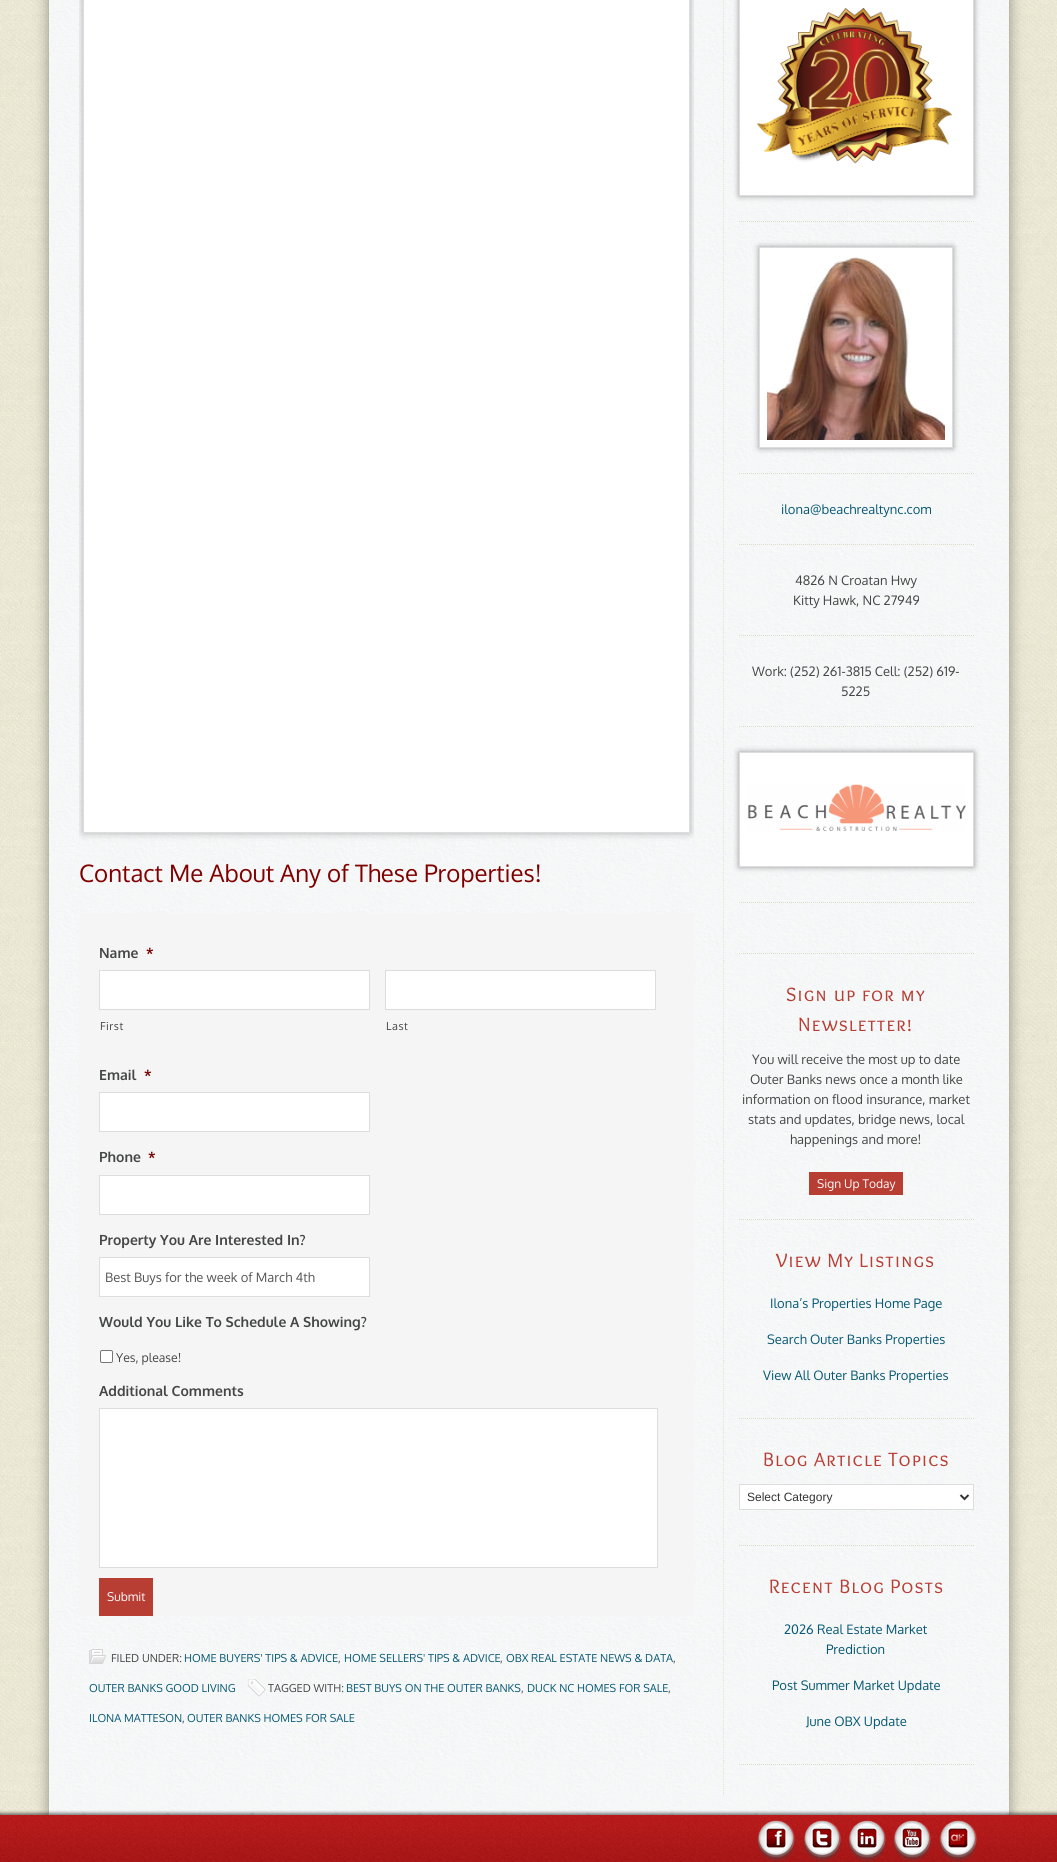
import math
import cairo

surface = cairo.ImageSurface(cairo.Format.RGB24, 1057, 1862)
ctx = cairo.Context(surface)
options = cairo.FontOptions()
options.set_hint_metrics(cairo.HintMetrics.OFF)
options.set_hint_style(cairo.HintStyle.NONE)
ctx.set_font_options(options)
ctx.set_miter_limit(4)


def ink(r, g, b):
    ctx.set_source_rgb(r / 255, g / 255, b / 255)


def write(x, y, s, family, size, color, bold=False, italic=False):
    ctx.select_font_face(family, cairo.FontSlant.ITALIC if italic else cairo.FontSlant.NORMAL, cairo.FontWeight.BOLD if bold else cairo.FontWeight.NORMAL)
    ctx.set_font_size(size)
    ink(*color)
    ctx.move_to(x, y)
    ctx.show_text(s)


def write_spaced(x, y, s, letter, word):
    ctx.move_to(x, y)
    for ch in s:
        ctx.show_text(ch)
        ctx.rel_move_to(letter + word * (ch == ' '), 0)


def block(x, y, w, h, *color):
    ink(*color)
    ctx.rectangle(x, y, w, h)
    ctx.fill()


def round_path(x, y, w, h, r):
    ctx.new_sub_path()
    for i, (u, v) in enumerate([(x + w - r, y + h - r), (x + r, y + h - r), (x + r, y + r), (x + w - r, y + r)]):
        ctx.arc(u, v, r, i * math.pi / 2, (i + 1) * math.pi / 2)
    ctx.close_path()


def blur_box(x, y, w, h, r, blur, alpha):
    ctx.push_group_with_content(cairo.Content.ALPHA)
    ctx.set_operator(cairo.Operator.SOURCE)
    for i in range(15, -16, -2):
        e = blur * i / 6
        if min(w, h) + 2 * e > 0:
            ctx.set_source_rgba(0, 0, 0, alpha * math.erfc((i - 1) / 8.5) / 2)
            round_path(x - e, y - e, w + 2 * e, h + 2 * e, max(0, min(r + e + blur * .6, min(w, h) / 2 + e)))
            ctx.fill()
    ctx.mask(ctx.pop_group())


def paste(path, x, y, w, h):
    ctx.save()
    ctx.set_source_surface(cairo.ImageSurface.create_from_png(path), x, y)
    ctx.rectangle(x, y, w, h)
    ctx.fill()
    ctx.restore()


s1 = dict(family="Oxygen", size=24, color=(128, 0, 0))
s2 = dict(family="Oxygen", size=14, color=(69, 70, 70), bold=True)
s3 = dict(family="Oxygen", size=14, color=(121, 0, 0), bold=True)
s4 = dict(family="Oxygen", size=13, color=(85, 85, 85))
s5 = dict(family="Oxygen", size=12.25, color=(69, 70, 70))
s6 = dict(family="Oxygen", size=12, color=(255, 255, 255))
s7 = dict(family="Oxygen", size=11, color=(69, 70, 70))
s8 = dict(family="Oxygen", size=11, color=(7, 88, 116))
s9 = dict(family="Oxygen", size=13, color=(7, 88, 116))
s10 = dict(family="Oxygen", size=13, color=(69, 70, 70))
s11 = dict(family="Liberation Sans", size=12, color=(51, 51, 51))

ink(255, 255, 255)
ctx.paint()
paste("pic1.png", 0, 0, 1057, 1815)
ink(0, 0, 0)
blur_box(49, -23, 960, 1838, 0, 7.5, 0.4)
paste("pic2.png", 49, 0, 960, 1815)
ctx.save()
ctx.rectangle(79, 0, 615, 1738)
ctx.clip()
blur_box(83, -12, 607, 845, 0, 4, 0.3)
ctx.restore()
ink(255, 255, 255)
ctx.rectangle(83.5, -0.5, 606, 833)
ctx.fill_preserve()
ink(221, 221, 221)
ctx.set_line_width(1)
ctx.stroke()
write(79, 882, "Contact Me About Any of These Properties!", **s1)
block(79, 913, 615, 703, 245, 245, 245)
write(99, 958, "Name", **s2)
write(146, 958, "*", **s3)
ink(255, 255, 255)
ctx.rectangle(99.5, 970.5, 270, 39)
ctx.fill_preserve()
ink(221, 221, 221)
ctx.stroke()
ctx.select_font_face("Oxygen")
ctx.set_font_size(11)
ink(69, 70, 70)
write_spaced(100, 1030, "First", 0.5, 0)
ink(255, 255, 255)
ctx.rectangle(385.5, 970.5, 270, 39)
ctx.fill_preserve()
ink(221, 221, 221)
ctx.stroke()
ink(69, 70, 70)
write_spaced(386, 1030, "Last", 0.5, 0)
write(99, 1080, "Email", **s2)
write(144, 1080, "*", **s3)
ink(255, 255, 255)
ctx.rectangle(99.5, 1092.5, 270, 39)
ctx.fill_preserve()
ink(221, 221, 221)
ctx.stroke()
write(99, 1162, "Phone", **s2)
write(148, 1162, "*", **s3)
ink(255, 255, 255)
ctx.rectangle(99.5, 1175.5, 270, 39)
ctx.fill_preserve()
ink(221, 221, 221)
ctx.stroke()
write(99, 1245, "Property You Are Interested In?", **s2)
ink(255, 255, 255)
ctx.rectangle(99.5, 1257.5, 270, 39)
ctx.fill_preserve()
ink(221, 221, 221)
ctx.stroke()
write(105, 1282, "Best Buys for the week of March 4th", **s4)
write(99, 1327, "Would You Like To Schedule A Showing?", **s2)
ink(255, 255, 255)
round_path(100.5, 1350.5, 12, 12, 1.5)
ctx.fill_preserve()
ink(118, 118, 118)
ctx.stroke()
write(116, 1362, "Yes, please!", **s5)
write(99, 1396, "Additional Comments", **s2)
ink(255, 255, 255)
ctx.rectangle(99.5, 1408.5, 558, 159)
ctx.fill_preserve()
ink(221, 221, 221)
ctx.stroke()
block(99, 1578, 54, 38, 184, 61, 51)
write(107, 1601, "Submit", **s6)
paste("pic3.png", 89, 1649, 17, 15)
write(111, 1662, "FILED UNDER:", **s7)
write(184, 1662, "HOME BUYERS' TIPS & ADVICE", **s8)
write(338, 1662, ",", **s7)
write(344, 1662, "HOME SELLERS' TIPS & ADVICE", **s8)
write(500, 1662, ",", **s7)
write(506, 1662, "OBX REAL ESTATE NEWS & DATA", **s8)
write(673, 1662, ",", **s7)
write(89, 1692, "OUTER BANKS GOOD LIVING", **s8)
paste("pic4.png", 248, 1679, 18, 18)
write(268, 1692, "TAGGED WITH:", **s7)
write(346, 1692, "BEST BUYS ON THE OUTER BANKS", **s8)
write(521, 1692, ",", **s7)
write(527, 1692, "DUCK NC HOMES FOR SALE", **s8)
write(668, 1692, ",", **s7)
write(89, 1722, "ILONA MATTESON", **s8)
write(182, 1722, ",", **s7)
write(187, 1722, "OUTER BANKS HOMES FOR SALE", **s8)
ctx.new_path()
ctx.move_to(723.5, -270)
ctx.line_to(723.5, 1795)
ink(225, 227, 213)
ctx.set_dash([1, 1])
ctx.stroke()
ctx.new_path()
ctx.move_to(739, 221.5)
ctx.line_to(974, 221.5)
ink(222, 220, 200)
ctx.stroke()
ink(0, 0, 0)
blur_box(739, -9, 235, 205, 0, 3, 0.4)
ink(255, 255, 255)
ctx.rectangle(739.5, -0.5, 234, 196)
ctx.fill_preserve()
ink(221, 221, 221)
ctx.set_dash([])
ctx.stroke()
paste("pic5.png", 756, 8, 196, 156)
ctx.new_path()
ctx.move_to(739, 473.5)
ctx.line_to(974, 473.5)
ink(222, 220, 200)
ctx.set_dash([1, 1])
ctx.stroke()
ink(0, 0, 0)
blur_box(759, 247, 194, 201, 0, 3, 0.4)
ink(255, 255, 255)
ctx.rectangle(759.5, 247.5, 193, 200)
ctx.fill_preserve()
ink(221, 221, 221)
ctx.set_dash([])
ctx.stroke()
paste("pic6.png", 767, 255, 178, 185)
ctx.new_path()
ctx.move_to(739, 544.5)
ctx.line_to(974, 544.5)
ink(222, 220, 200)
ctx.set_dash([1, 1])
ctx.stroke()
write(781, 514, "ilona@beachrealtync.com", **s9)
ctx.new_path()
ctx.move_to(739, 635.5)
ctx.line_to(974, 635.5)
ink(222, 220, 200)
ctx.stroke()
write(795, 585, "4826 N Croatan Hwy", **s10)
write(793, 605, "Kitty Hawk, NC 27949", **s10)
ctx.new_path()
ctx.move_to(739, 726.5)
ctx.line_to(974, 726.5)
ink(222, 220, 200)
ctx.stroke()
write(752, 676, "Work: (252) 261-3815 Cell: (252) 619-", **s10)
write(841, 696, "5225", **s10)
ctx.new_path()
ctx.move_to(739, 902.5)
ctx.line_to(974, 902.5)
ink(222, 220, 200)
ctx.stroke()
ink(0, 0, 0)
blur_box(739, 752, 235, 115, 0, 3, 0.4)
ink(255, 255, 255)
ctx.rectangle(739.5, 752.5, 234, 114)
ctx.fill_preserve()
ink(221, 221, 221)
ctx.set_dash([])
ctx.stroke()
paste("pic7.png", 747, 784, 219, 47)
ctx.new_path()
ctx.move_to(739, 953.5)
ctx.line_to(974, 953.5)
ink(222, 220, 200)
ctx.set_dash([1, 1])
ctx.stroke()
ctx.new_path()
ctx.move_to(739, 1219.5)
ctx.line_to(974, 1219.5)
ctx.stroke()
ctx.select_font_face("Overlock SC")
ctx.set_font_size(20)
ink(184, 61, 51)
write_spaced(786, 1001, "Sign up for my", 1, 0)
write_spaced(798, 1031, "Newsletter!", 1, 0)
write(752, 1064, "You will receive the most up to date", **s10)
write(750, 1084, "Outer Banks news once a month like", **s10)
write(742, 1104, "information on flood insurance, market", **s10)
write(748, 1124, "stats and updates, bridge news, local", **s10)
write(790, 1144, "happenings and more!", **s10)
block(809, 1172, 94, 23, 184, 61, 51)
write(817, 1188, "Sign Up Today", **s6)
ctx.new_path()
ctx.move_to(739, 1418.5)
ctx.line_to(974, 1418.5)
ink(222, 220, 200)
ctx.stroke()
ctx.select_font_face("Overlock SC")
ctx.set_font_size(20)
ink(184, 61, 51)
write_spaced(776, 1267, "View My Listings", 1, 0)
write(770, 1308, "Ilona’s Properties Home Page", **s9)
write(767, 1344, "Search Outer Banks Properties", **s9)
write(763, 1380, "View All Outer Banks Properties", **s9)
ctx.new_path()
ctx.move_to(739, 1545.5)
ctx.line_to(974, 1545.5)
ink(222, 220, 200)
ctx.stroke()
ctx.select_font_face("Overlock SC")
ctx.set_font_size(20)
ink(184, 61, 51)
write_spaced(763, 1466, "Blog Article Topics", 1, 0)
ink(255, 255, 255)
ctx.rectangle(739.5, 1484.5, 234, 25)
ctx.fill_preserve()
ink(221, 221, 221)
ctx.set_dash([])
ctx.stroke()
ctx.new_path()
ctx.move_to(960.5, 1495)
ctx.line_to(964.5, 1499)
ctx.line_to(968.5, 1495)
ink(51, 51, 51)
ctx.set_line_width(2)
ctx.stroke()
write(747, 1501, "Select Category", **s11)
ctx.new_path()
ctx.move_to(739, 1764.5)
ctx.line_to(974, 1764.5)
ink(222, 220, 200)
ctx.set_line_width(1)
ctx.set_dash([1, 1])
ctx.stroke()
ctx.select_font_face("Overlock SC")
ctx.set_font_size(20)
ink(184, 61, 51)
write_spaced(769, 1593, "Recent Blog Posts", 1, 0)
write(784, 1634, "2026 Real Estate Market", **s9)
write(826, 1654, "Prediction", **s9)
write(772, 1690, "Post Summer Market Update", **s9)
write(806, 1726, "June OBX Update", **s9)
paste("pic8.png", 0, 1810, 1057, 52)
paste("pic9.png", 757, 1820, 220, 42)
surface.write_to_png("screenshot.png")
